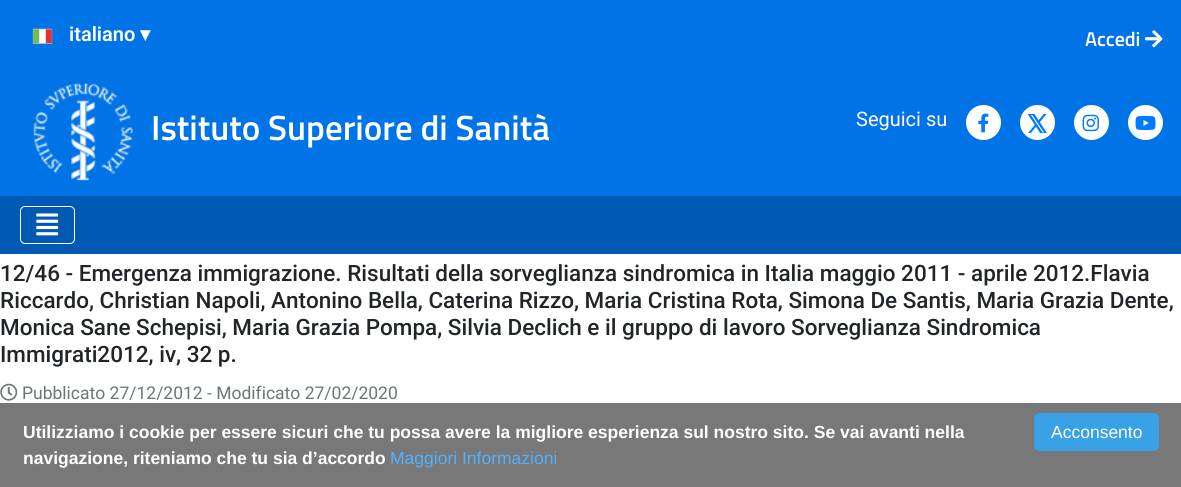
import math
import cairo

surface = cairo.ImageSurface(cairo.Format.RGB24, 1181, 487)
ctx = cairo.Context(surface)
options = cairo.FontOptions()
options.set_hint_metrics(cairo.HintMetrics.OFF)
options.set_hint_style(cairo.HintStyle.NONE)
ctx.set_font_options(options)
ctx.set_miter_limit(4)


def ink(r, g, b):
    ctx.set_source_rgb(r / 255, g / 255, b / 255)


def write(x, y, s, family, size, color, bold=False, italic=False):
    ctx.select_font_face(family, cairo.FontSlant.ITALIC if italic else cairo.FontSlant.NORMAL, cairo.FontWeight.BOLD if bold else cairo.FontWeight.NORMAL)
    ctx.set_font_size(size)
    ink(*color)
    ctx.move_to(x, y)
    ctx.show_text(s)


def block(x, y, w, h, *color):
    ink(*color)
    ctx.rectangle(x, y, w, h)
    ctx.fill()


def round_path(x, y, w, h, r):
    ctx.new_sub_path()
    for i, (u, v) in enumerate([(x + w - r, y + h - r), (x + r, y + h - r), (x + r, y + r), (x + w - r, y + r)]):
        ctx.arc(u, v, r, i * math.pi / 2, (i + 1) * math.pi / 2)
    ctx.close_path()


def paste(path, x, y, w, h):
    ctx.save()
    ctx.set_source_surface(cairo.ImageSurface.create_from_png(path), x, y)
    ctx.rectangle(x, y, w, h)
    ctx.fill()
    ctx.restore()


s1 = dict(family="Roboto SemiBold", size=20, color=(255, 255, 255))
s2 = dict(family="DejaVu Sans", size=20, color=(255, 255, 255), bold=True)
s3 = dict(family="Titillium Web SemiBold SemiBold", size=20, color=(255, 255, 255))
s4 = dict(family="Titillium Web SemiBold SemiBold", size=35, color=(255, 255, 255))
s5 = dict(family="Roboto", size=20, color=(255, 255, 255))
s6 = dict(family="Roboto Medium", size=22.5, color=(33, 37, 41))
s7 = dict(family="Roboto", size=17.5, color=(108, 117, 125))
s8 = dict(family="Liberation Sans", size=17.5, color=(255, 255, 255), bold=True)
s9 = dict(family="Liberation Sans", size=17.5, color=(82, 177, 255))
s10 = dict(family="Liberation Sans", size=17.5, color=(255, 255, 255))

ink(255, 255, 255)
ctx.paint()
block(0, 0, 1181, 196, 0, 115, 230)
paste("pic1.png", 32, 28, 21, 16)
write(69, 41, "italiano", **s1)
write(140, 41, "▾", **s2)
write(1085, 46, "Accedi", **s3)
paste("pic2.png", 1145, 30, 18, 18)
paste("pic3.png", 33, 83, 100, 98)
write(151, 140, "Istituto Superiore di Sanità", **s4)
write(856, 126, "Seguici su", **s5)
ctx.new_path()
ctx.arc(983.5, 122.5, 17.5, 0, 2 * math.pi)
ctx.fill()
paste("pic4.png", 978, 113, 11, 20)
ctx.arc(1037.5, 122.5, 17.5, 0, 2 * math.pi)
ctx.fill()
paste("pic5.png", 1028, 114, 19, 19)
ctx.arc(1091.5, 122.5, 17.5, 0, 2 * math.pi)
ctx.fill()
paste("pic6.png", 1082, 114, 17, 18)
ctx.arc(1145.5, 122.5, 17.5, 0, 2 * math.pi)
ctx.fill()
paste("pic7.png", 1135, 115, 21, 15)
block(0, 196, 1181, 58, 0, 89, 179)
round_path(20.5, 206.5, 54, 37, 4.5)
ink(255, 255, 255)
ctx.set_line_width(1)
ctx.stroke()
paste("pic8.png", 36, 213, 23, 23)
write(0, 281, "12/46 - Emergenza immigrazione. Risultati della sorveglianza sindromica in Italia maggio 2011 - aprile 2012.Flavia", **s6)
write(0, 308, "Riccardo, Christian Napoli, Antonino Bella, Caterina Rizzo, Maria Cristina Rota, Simona De Santis, Maria Grazia Dente,", **s6)
write(0, 335, "Monica Sane Schepisi, Maria Grazia Pompa, Silvia Declich e il gruppo di lavoro Sorveglianza Sindromica", **s6)
write(0, 362, "Immigrati2012, iv, 32 p.", **s6)
paste("pic9.png", 0, 383, 18, 18)
write(22, 399, "Pubblicato 27/12/2012 - Modificato 27/02/2020", **s7)
block(0, 403, 1181, 84, 120, 120, 120)
write(23, 438, "Utilizziamo i cookie per essere sicuri che tu possa avere la migliore esperienza sul nostro sito. Se vai avanti nella", **s8)
write(23, 464, "navigazione, riteniamo che tu sia d’accordo", **s8)
write(390, 464, "Maggiori Informazioni", **s9)
ink(57, 161, 230)
round_path(1034, 413, 125, 38, 6)
ctx.fill()
write(1051, 438, "Acconsento", **s10)
surface.write_to_png("screenshot.png")
